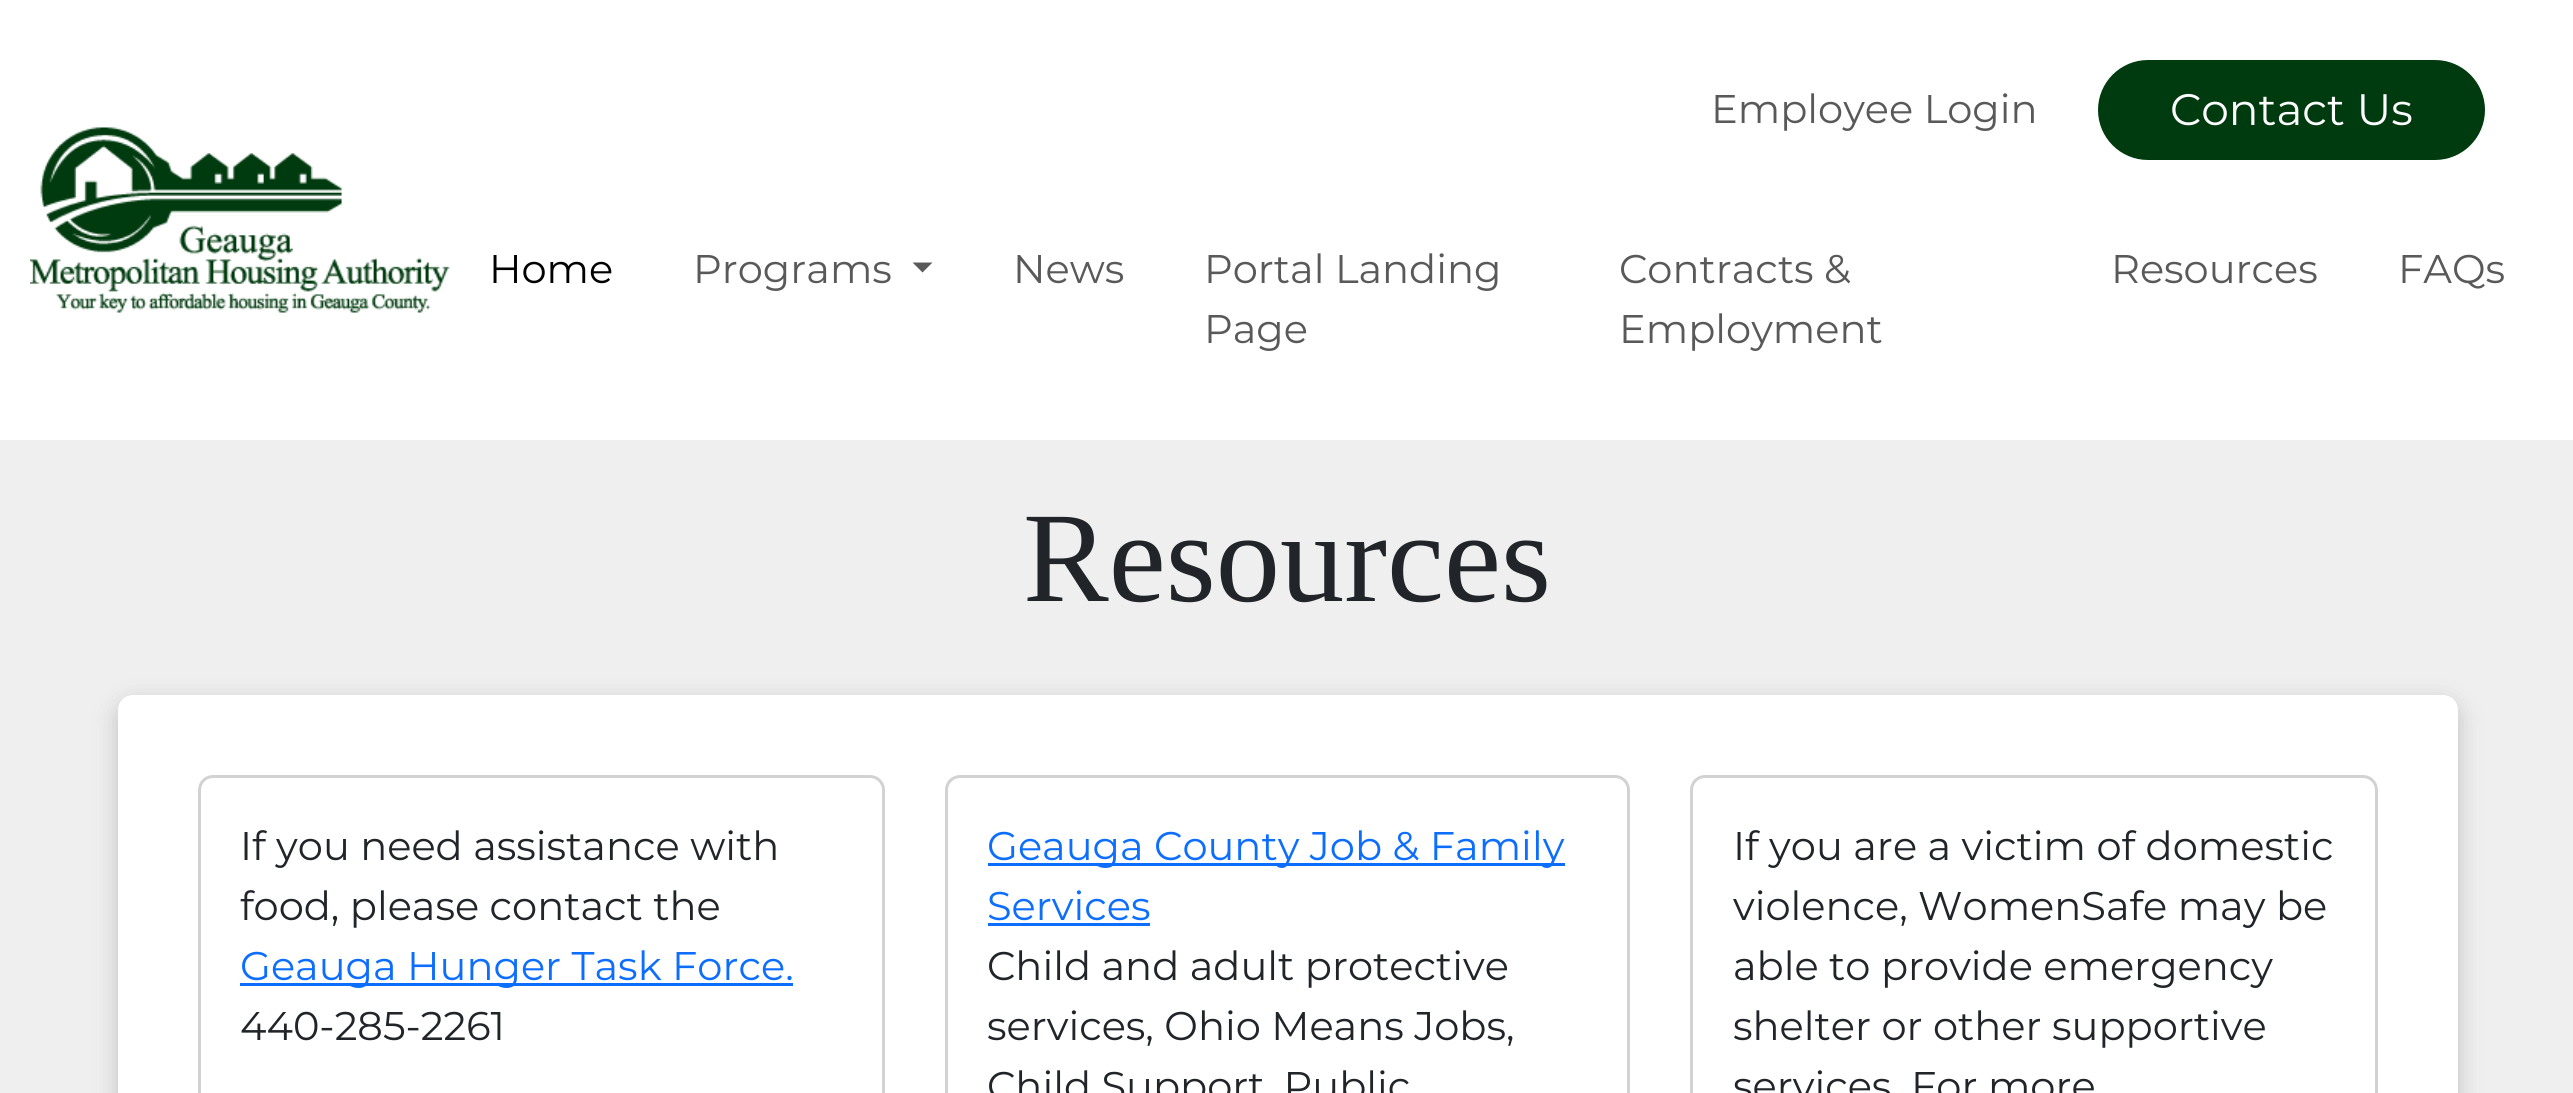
import math
import cairo

surface = cairo.ImageSurface(cairo.Format.RGB24, 2573, 1093)
ctx = cairo.Context(surface)
options = cairo.FontOptions()
options.set_hint_metrics(cairo.HintMetrics.OFF)
options.set_hint_style(cairo.HintStyle.NONE)
ctx.set_font_options(options)
ctx.set_miter_limit(4)


def ink(r, g, b):
    ctx.set_source_rgb(r / 255, g / 255, b / 255)


def write(x, y, s, family, size, color, bold=False, italic=False):
    ctx.select_font_face(family, cairo.FontSlant.ITALIC if italic else cairo.FontSlant.NORMAL, cairo.FontWeight.BOLD if bold else cairo.FontWeight.NORMAL)
    ctx.set_font_size(size)
    ink(*color)
    ctx.move_to(x, y)
    ctx.show_text(s)


def block(x, y, w, h, *color):
    ink(*color)
    ctx.rectangle(x, y, w, h)
    ctx.fill()


def round_path(x, y, w, h, r):
    ctx.new_sub_path()
    for i, (u, v) in enumerate([(x + w - r, y + h - r), (x + r, y + h - r), (x + r, y + r), (x + w - r, y + r)]):
        ctx.arc(u, v, r, i * math.pi / 2, (i + 1) * math.pi / 2)
    ctx.close_path()


def blur_box(x, y, w, h, r, blur, alpha):
    ctx.push_group_with_content(cairo.Content.ALPHA)
    ctx.set_operator(cairo.Operator.SOURCE)
    for i in range(15, -16, -2):
        e = blur * i / 6
        if min(w, h) + 2 * e > 0:
            ctx.set_source_rgba(0, 0, 0, alpha * math.erfc((i - 1) / 8.5) / 2)
            round_path(x - e, y - e, w + 2 * e, h + 2 * e, max(0, min(r + e + blur * .6, min(w, h) / 2 + e)))
            ctx.fill()
    ctx.mask(ctx.pop_group())


def paste(path, x, y, w, h):
    ctx.save()
    ctx.set_source_surface(cairo.ImageSurface.create_from_png(path), x, y)
    ctx.rectangle(x, y, w, h)
    ctx.fill()
    ctx.restore()


s1 = dict(family="Montserrat", size=40, color=(89, 89, 89))
s2 = dict(family="Montserrat", size=44, color=(255, 255, 255))
s3 = dict(family="Montserrat", size=40, color=(0, 0, 0))
s4 = dict(family="Liberation Serif", size=128.5, color=(33, 37, 41))
s5 = dict(family="Montserrat", size=40, color=(33, 37, 41))
s6 = dict(family="Montserrat", size=40, color=(13, 110, 253))

ink(239, 239, 239)
ctx.paint()
block(0, 0, 2573, 440, 255, 255, 255)
paste("pic1.png", 30, 127, 420, 186)
write(1711, 123, "Employee Login", **s1)
ink(0, 59, 15)
round_path(2098, 60, 387, 100, 50)
ctx.fill()
write(2170, 125, "Contact Us", **s2)
write(489, 283, "Home", **s3)
write(693, 283, "Programs", **s1)
ctx.new_path()
ctx.move_to(912.5, 262.5)
ctx.line_to(932.5, 262.5)
ctx.line_to(922.5, 272.5)
ctx.close_path()
ctx.fill()
write(1013, 283, "News", **s1)
write(1204, 283, "Portal Landing", **s1)
write(1204, 343, "Page", **s1)
write(1619, 283, "Contracts &", **s1)
write(1619, 343, "Employment", **s1)
write(2111, 283, "Resources", **s1)
write(2398, 283, "FAQs", **s1)
write(1023, 601, "Resources", **s4)
ink(0, 0, 0)
blur_box(118, 703, 2340, 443, 15, 12.5, 0.2)
ink(255, 255, 255)
round_path(118, 695, 2340, 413, 15)
ctx.fill()
round_path(199.5, 776.5, 684, 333, 13.5)
ink(210, 210, 210)
ctx.set_line_width(3)
ctx.stroke()
write(240, 860, "If you need assistance with", **s5)
write(240, 920, "food, please contact the", **s5)
block(240, 983, 553, 3, 13, 110, 253)
write(240, 980, "Geauga Hunger Task Force.", **s6)
write(240, 1040, "440-285-2261", **s5)
round_path(946.5, 776.5, 682, 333, 13.5)
ink(210, 210, 210)
ctx.stroke()
block(988, 863, 577, 3, 13, 110, 253)
write(987, 860, "Geauga County Job & Family", **s6)
write(987, 920, "Services", **s6)
block(988, 923, 162, 3, 13, 110, 253)
write(987, 980, "Child and adult protective", **s5)
write(987, 1040, "services, Ohio Means Jobs,", **s5)
write(987, 1100, "Child Support, Public", **s5)
round_path(1691.5, 776.5, 685, 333, 13.5)
ink(210, 210, 210)
ctx.stroke()
write(1733, 860, "If you are a victim of domestic", **s5)
write(1733, 920, "violence, WomenSafe may be", **s5)
write(1733, 980, "able to provide emergency", **s5)
write(1733, 1040, "shelter or other supportive", **s5)
write(1733, 1100, "services", **s5)
write(1911, 1100, "For more", **s5)
surface.write_to_png("screenshot.png")
